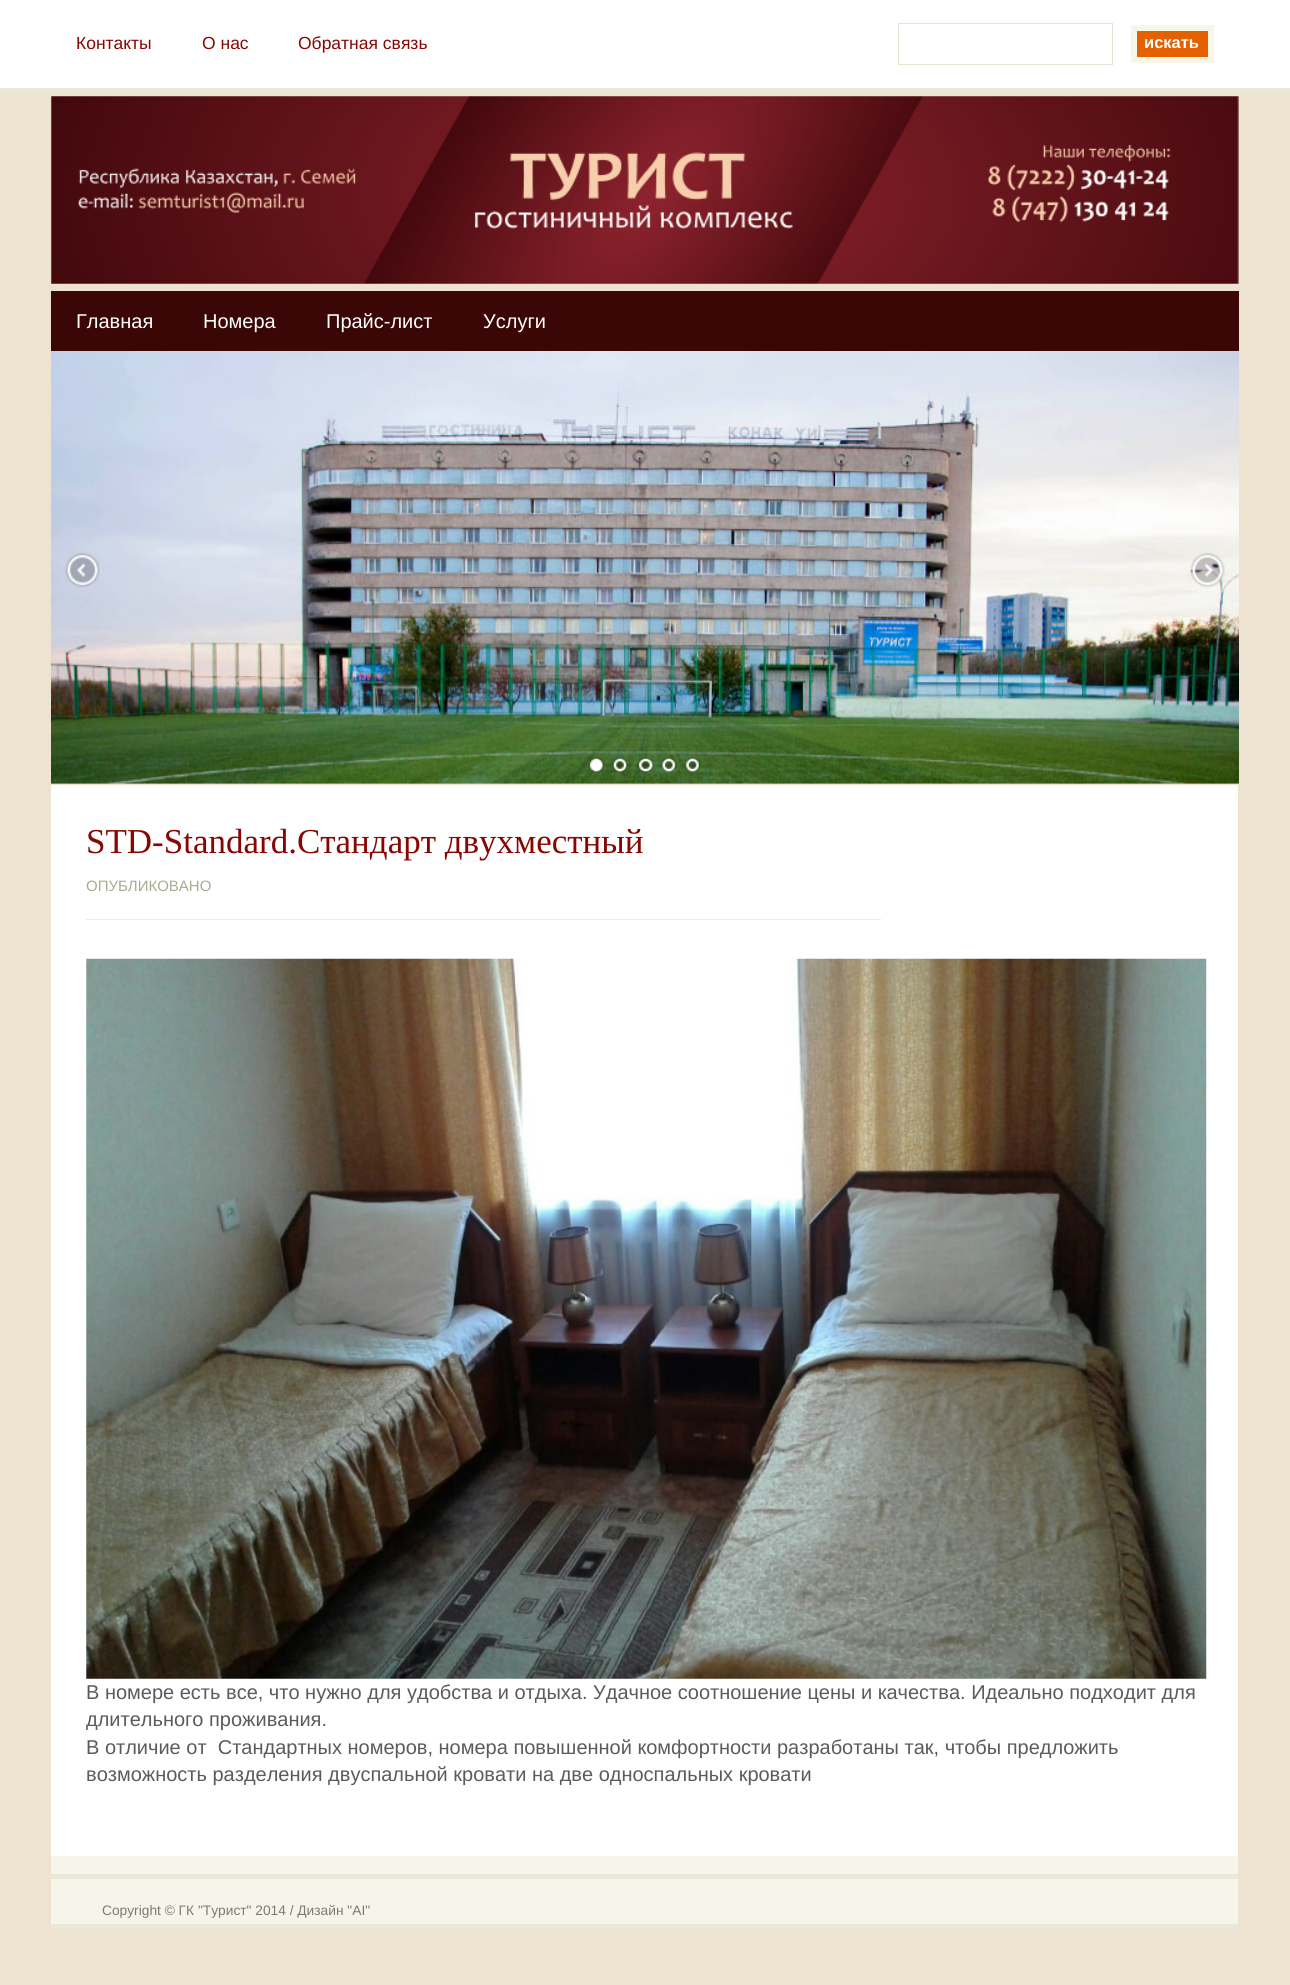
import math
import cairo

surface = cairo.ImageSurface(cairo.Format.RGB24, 1290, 1985)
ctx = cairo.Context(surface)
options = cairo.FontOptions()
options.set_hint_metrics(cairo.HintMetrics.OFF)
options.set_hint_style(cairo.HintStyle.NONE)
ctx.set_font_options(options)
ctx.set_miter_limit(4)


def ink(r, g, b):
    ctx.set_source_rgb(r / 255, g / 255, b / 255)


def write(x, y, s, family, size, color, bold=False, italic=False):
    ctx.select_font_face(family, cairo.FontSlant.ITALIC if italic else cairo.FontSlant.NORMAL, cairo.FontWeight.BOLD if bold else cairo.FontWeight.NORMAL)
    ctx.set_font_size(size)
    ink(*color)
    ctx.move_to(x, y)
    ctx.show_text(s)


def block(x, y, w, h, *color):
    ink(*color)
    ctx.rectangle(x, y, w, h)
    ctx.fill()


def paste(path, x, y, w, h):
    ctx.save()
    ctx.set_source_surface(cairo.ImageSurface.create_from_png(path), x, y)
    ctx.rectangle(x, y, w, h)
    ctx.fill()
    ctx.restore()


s1 = dict(family="Liberation Sans", size=17.5, color=(135, 6, 1))
s2 = dict(family="Liberation Sans", size=16.5, color=(255, 255, 255), bold=True)
s3 = dict(family="Liberation Sans", size=20, color=(255, 255, 255))
s4 = dict(family="Liberation Serif", size=35, color=(135, 6, 1))
s5 = dict(family="Liberation Sans", size=15, color=(171, 171, 145))
s6 = dict(family="Liberation Sans", size=20, color=(91, 91, 88))
s7 = dict(family="Liberation Sans", size=13.75, color=(123, 123, 111))

ink(238, 227, 209)
ctx.paint()
block(0, 88, 1290, 5, 235, 233, 216)
block(0, 0, 1290, 88, 255, 255, 255)
write(76, 49, "Контакты", **s1)
write(202, 49, "О нас", **s1)
write(298, 49, "Обратная связь", **s1)
ctx.rectangle(898.5, 23.5, 214, 41)
ink(229, 227, 211)
ctx.set_line_width(1)
ctx.stroke()
ink(229, 97, 0)
ctx.rectangle(1134, 28, 77, 32)
ctx.fill_preserve()
ink(246, 246, 233)
ctx.set_line_width(6)
ctx.stroke()
write(1144, 48, "искать", **s2)
paste("pic1.png", 51, 96, 1188, 188)
block(51, 291, 1188, 60, 59, 6, 6)
write(76, 328, "Главная", **s3)
write(203, 328, "Номера", **s3)
write(326, 328, "Прайс-лист", **s3)
write(483, 328, "Услуги", **s3)
paste("pic2.png", 51, 351, 1188, 433)
paste("pic3.png", 65, 552, 35, 36)
paste("pic4.png", 1190, 552, 35, 36)
paste("pic5.png", 588, 756, 17, 17)
paste("pic6.png", 612, 757, 16, 16)
paste("pic7.png", 637, 757, 18, 16)
paste("pic8.png", 660, 757, 17, 17)
paste("pic9.png", 684, 756, 17, 17)
block(51, 785, 1187, 1071, 255, 255, 255)
write(86, 853, "STD-Standard.Стандарт двухместный", **s4)
write(86, 891, "ОПУБЛИКОВАНО", **s5)
block(86, 919, 795, 1, 238, 238, 221)
paste("pic10.png", 86, 958, 1121, 721)
write(86, 1699, "В номере есть все, что нужно для удобства и отдыха. Удачное соотношение цены и качества. Идеально подходит для", **s6)
write(86, 1726, "длительного проживания.", **s6)
write(86, 1754, "В отличие от  Стандартных номеров, номера повышенной комфортности разработаны так, чтобы предложить", **s6)
write(86, 1781, "возможность разделения двуспальной кровати на две односпальных кровати", **s6)
block(51, 1856, 1187, 18, 245, 245, 235)
block(51, 1874, 1187, 5, 233, 233, 217)
block(51, 1879, 1187, 45, 245, 245, 235)
block(51, 1924, 1187, 5, 233, 233, 217)
write(102, 1915, "Copyright © ГК \"Турист\" 2014 / Дизайн \"AI\"", **s7)
surface.write_to_png("screenshot.png")
